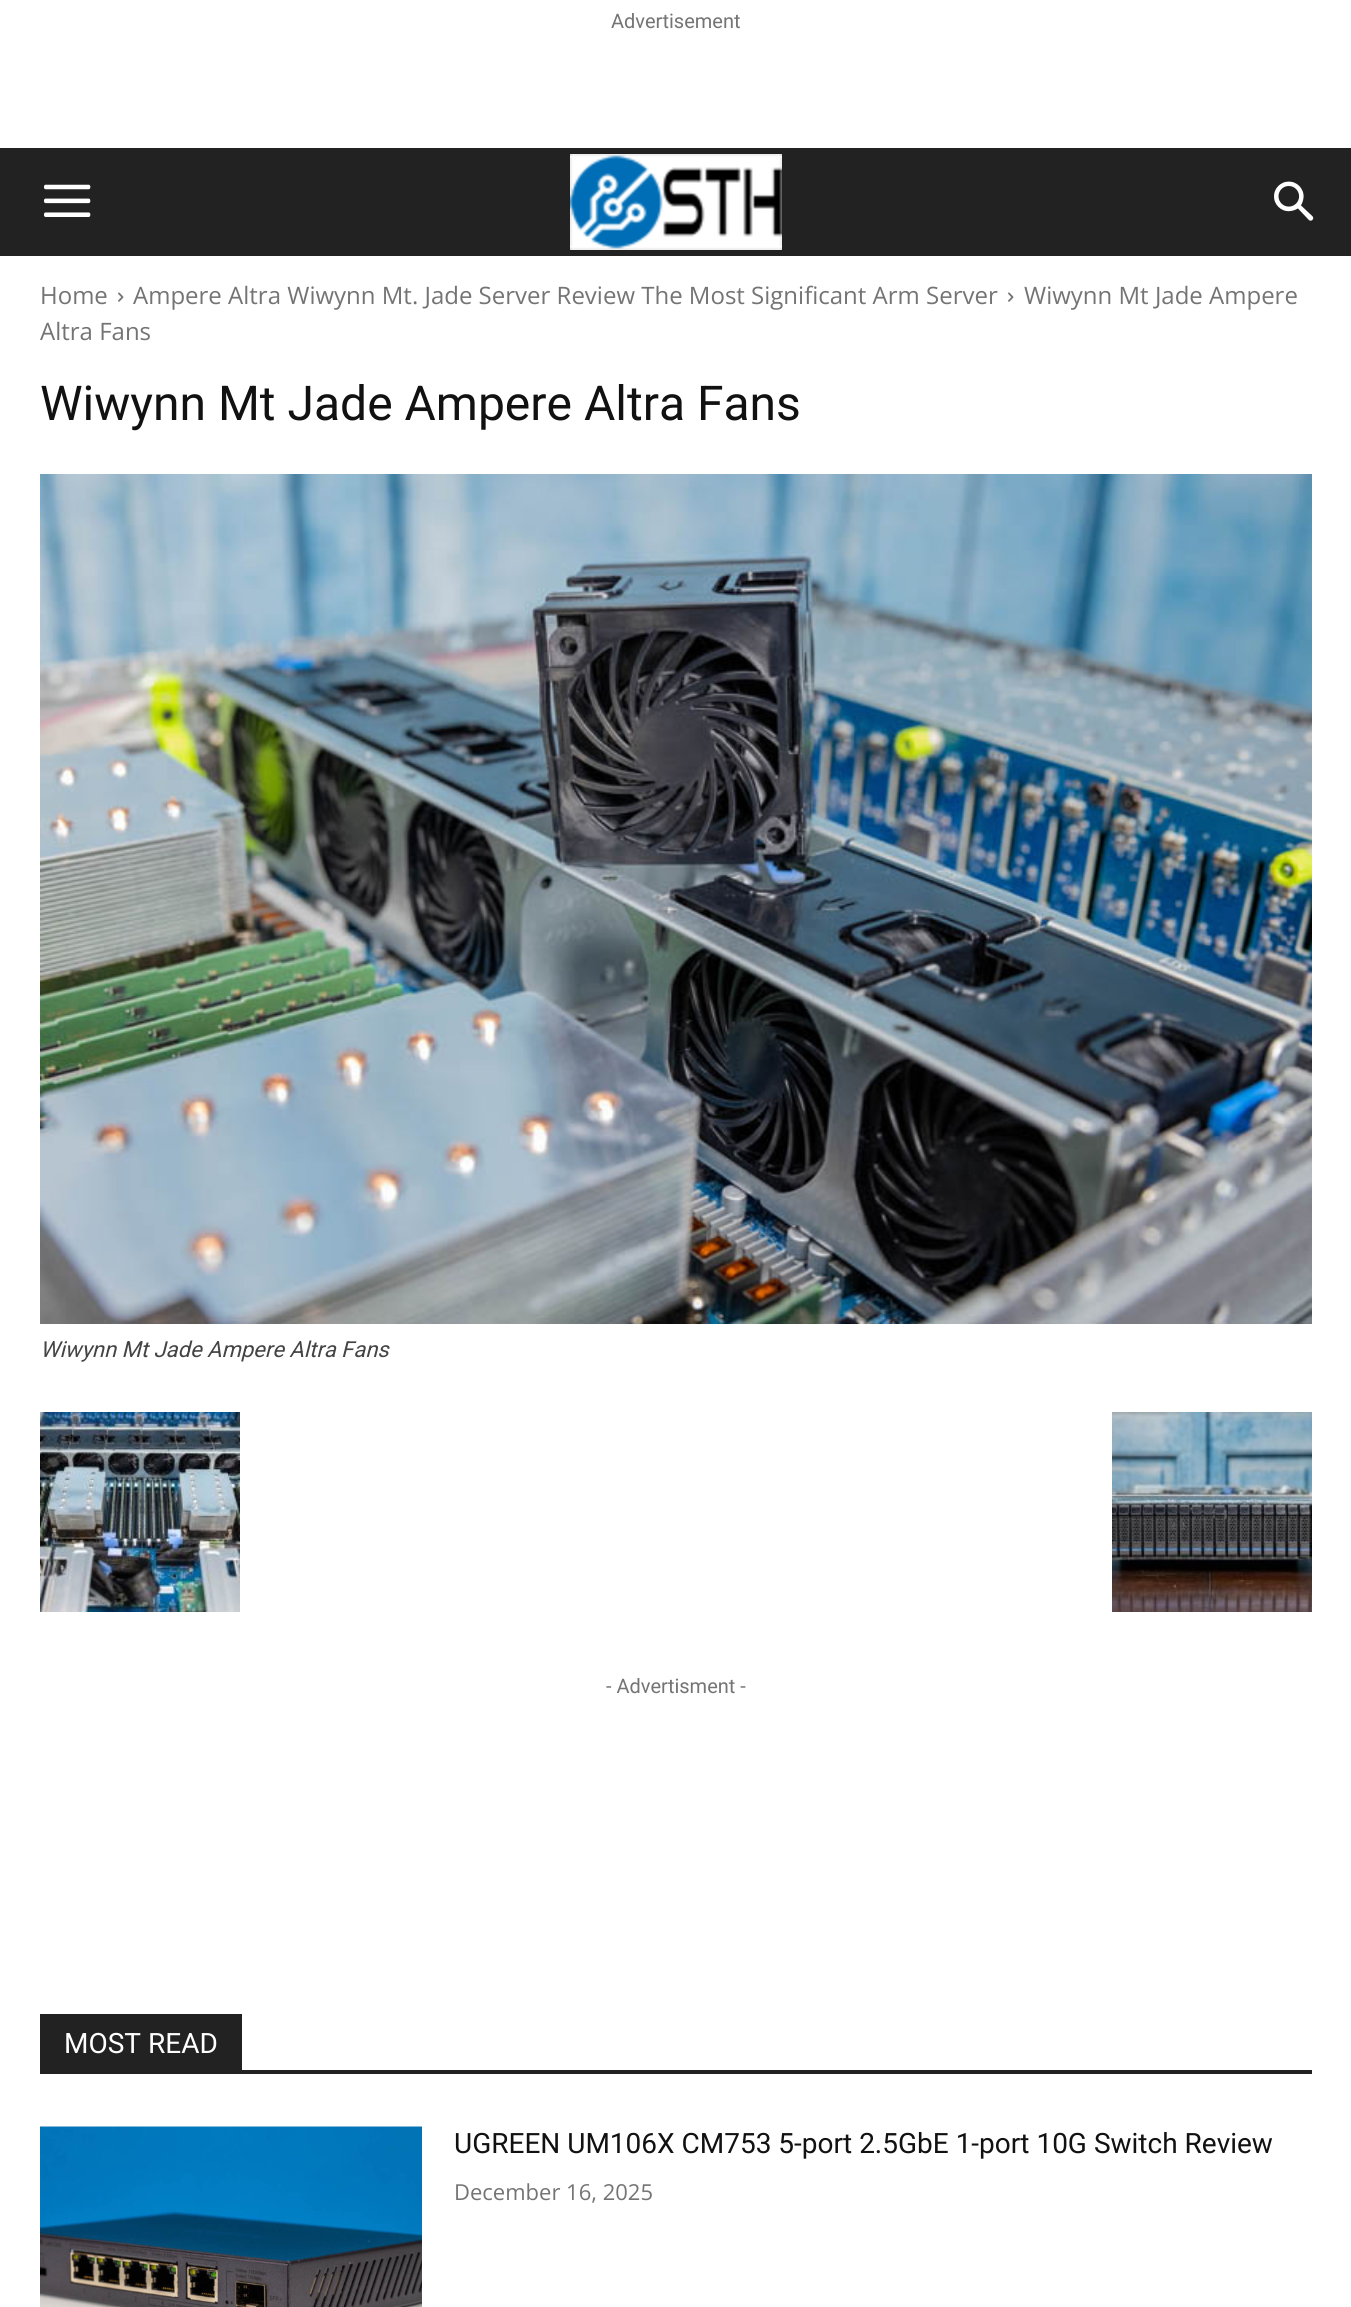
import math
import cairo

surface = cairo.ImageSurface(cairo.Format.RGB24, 1351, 2307)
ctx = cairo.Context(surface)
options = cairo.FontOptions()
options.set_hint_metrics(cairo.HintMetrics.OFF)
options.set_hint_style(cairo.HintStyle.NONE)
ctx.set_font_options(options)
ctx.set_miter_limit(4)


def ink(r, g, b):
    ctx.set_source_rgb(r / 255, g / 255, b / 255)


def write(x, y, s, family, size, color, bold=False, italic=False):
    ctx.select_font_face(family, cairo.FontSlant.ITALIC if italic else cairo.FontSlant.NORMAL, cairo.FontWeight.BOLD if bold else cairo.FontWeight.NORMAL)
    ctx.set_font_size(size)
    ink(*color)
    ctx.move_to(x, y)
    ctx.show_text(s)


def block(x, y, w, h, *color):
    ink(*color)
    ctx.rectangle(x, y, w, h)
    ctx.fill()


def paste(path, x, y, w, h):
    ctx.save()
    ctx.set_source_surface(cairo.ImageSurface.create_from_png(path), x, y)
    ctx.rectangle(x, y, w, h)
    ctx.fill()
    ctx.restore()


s1 = dict(family="Roboto", size=20, color=(116, 116, 116))
s2 = dict(family="Open Sans", size=24, color=(116, 116, 116))
s3 = dict(family="Roboto", size=48, color=(17, 17, 17))
s4 = dict(family="Roboto", size=22, color=(68, 68, 68), italic=True)
s5 = dict(family="Roboto", size=28, color=(255, 255, 255))
s6 = dict(family="Roboto", size=28, color=(17, 17, 17))
s7 = dict(family="Open Sans", size=22, color=(116, 116, 116))

ink(255, 255, 255)
ctx.paint()
write(611, 28, "Advertisement", **s1)
block(0, 148, 1351, 108, 34, 34, 34)
paste("pic1.png", 44, 184, 47, 33)
paste("pic2.png", 570, 154, 212, 96)
paste("pic3.png", 1274, 181, 40, 40)
write(40, 304, "Home", **s2)
paste("pic4.png", 118, 292, 6, 10)
write(133, 304, "Ampere Altra Wiwynn Mt. Jade Server Review The Most Significant Arm Server", **s2)
paste("pic4.png", 1008, 292, 6, 10)
write(1024, 304, "Wiwynn Mt Jade Ampere", **s2)
write(40, 340, "Altra Fans", **s2)
write(40, 420, "Wiwynn Mt Jade Ampere Altra Fans", **s3)
paste("pic5.png", 40, 474, 1272, 850)
write(40, 1357, "Wiwynn Mt Jade Ampere Altra Fans", **s4)
paste("pic6.png", 40, 1412, 200, 200)
paste("pic7.png", 1112, 1412, 200, 200)
write(606, 1693, "- Advertisment -", **s1)
block(40, 2070, 1272, 4, 34, 34, 34)
block(40, 2014, 202, 56, 34, 34, 34)
write(64, 2053, "MOST READ", **s5)
paste("pic8.png", 40, 2126, 382, 181)
write(454, 2153, "UGREEN UM106X CM753 5-port 2.5GbE 1-port 10G Switch Review", **s6)
write(454, 2200, "December 16, 2025", **s7)
surface.write_to_png("screenshot.png")
